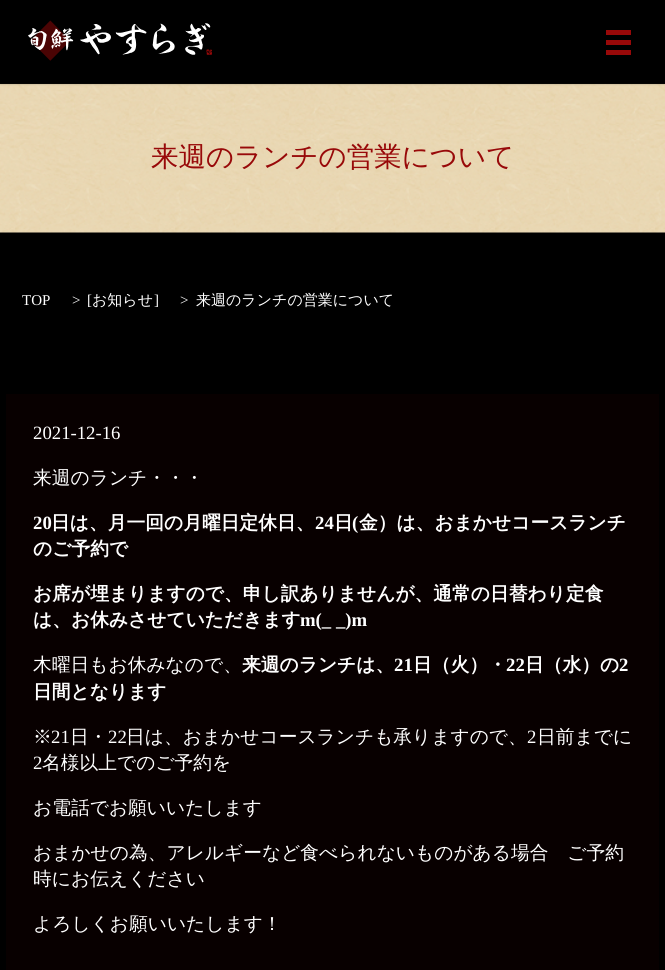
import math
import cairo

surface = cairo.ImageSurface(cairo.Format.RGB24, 665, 970)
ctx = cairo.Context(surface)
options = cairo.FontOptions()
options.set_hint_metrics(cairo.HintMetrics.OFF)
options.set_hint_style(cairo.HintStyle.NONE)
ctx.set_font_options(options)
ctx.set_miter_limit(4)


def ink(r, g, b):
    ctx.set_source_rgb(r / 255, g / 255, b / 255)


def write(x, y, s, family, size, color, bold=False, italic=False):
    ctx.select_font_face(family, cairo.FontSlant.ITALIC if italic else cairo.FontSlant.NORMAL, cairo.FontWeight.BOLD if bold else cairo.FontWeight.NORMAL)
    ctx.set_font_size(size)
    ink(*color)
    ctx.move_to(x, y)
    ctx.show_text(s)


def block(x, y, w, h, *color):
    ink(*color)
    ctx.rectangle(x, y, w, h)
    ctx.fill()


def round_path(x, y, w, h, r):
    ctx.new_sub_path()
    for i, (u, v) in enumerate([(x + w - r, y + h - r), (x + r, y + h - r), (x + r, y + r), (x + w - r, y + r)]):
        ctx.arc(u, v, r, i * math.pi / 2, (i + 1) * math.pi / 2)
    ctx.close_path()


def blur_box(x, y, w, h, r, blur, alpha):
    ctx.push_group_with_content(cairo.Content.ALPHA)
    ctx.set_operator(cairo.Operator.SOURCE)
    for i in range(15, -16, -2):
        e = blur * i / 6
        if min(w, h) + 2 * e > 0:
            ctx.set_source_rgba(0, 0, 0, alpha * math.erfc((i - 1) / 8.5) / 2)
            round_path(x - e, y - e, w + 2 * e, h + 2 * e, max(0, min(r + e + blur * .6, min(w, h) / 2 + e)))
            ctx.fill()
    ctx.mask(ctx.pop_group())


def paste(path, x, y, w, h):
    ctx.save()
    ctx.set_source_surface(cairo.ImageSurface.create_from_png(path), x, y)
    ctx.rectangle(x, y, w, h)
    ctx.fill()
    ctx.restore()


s1 = dict(family="WenQuanYi Zen Hei Medium", size=27.5, color=(152, 9, 9))
s2 = dict(family="Liberation Serif", size=15, color=(255, 255, 255))
s3 = dict(family="WenQuanYi Zen Hei Medium", size=15, color=(255, 255, 255))
s4 = dict(family="Liberation Serif", size=18.75, color=(255, 255, 255))
s5 = dict(family="WenQuanYi Zen Hei Medium", size=18.75, color=(255, 255, 255))
s6 = dict(family="Liberation Serif", size=18.75, color=(255, 255, 255), bold=True)
s7 = dict(family="WenQuanYi Zen Hei", size=18.75, color=(255, 255, 255), bold=True)

ink(0, 0, 0)
ctx.paint()
paste("pic2.png", 0, 83, 665, 150)
ctx.save()
ctx.set_fill_rule(cairo.FillRule.EVEN_ODD)
ctx.new_path()
ctx.move_to(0, 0)
ctx.line_to(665, 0)
ctx.line_to(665, 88)
ctx.line_to(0, 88)
ctx.close_path()
ctx.move_to(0, 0)
ctx.line_to(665, 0)
ctx.line_to(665, 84)
ctx.line_to(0, 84)
ctx.close_path()
ctx.clip()
blur_box(0, 1, 665, 84, 0, 0.5, 0.1)
ctx.restore()
ctx.set_source_rgba(0, 0, 0, 0.6)
ctx.rectangle(0, 83, 665, 1)
ctx.fill()
paste("pic1.png", 28, 20, 184, 41)
block(606, 30, 25, 5, 152, 9, 9)
block(606, 40, 25, 5, 152, 9, 9)
block(606, 50, 25, 5, 152, 9, 9)
write(151, 166, "来週のランチの営業について", **s1)
write(22, 305, "TOP", **s2)
write(72, 305, ">", **s2)
write(87, 305, "[", **s2)
write(92, 305, "お知らせ", **s3)
write(154, 305, "]", **s2)
write(180, 305, ">", **s2)
write(196, 305, "来週のランチの営業について", **s3)
block(6, 394, 653, 576, 8, 0, 0)
write(33, 439, "2021-12-16", **s4)
write(33, 484, "来週のランチ・・・", **s5)
write(33, 529, "20", **s6)
write(51, 529, "日は、月一回の月曜日定休日、", **s7)
write(315, 529, "24", **s6)
write(334, 529, "日", **s7)
write(352, 529, "(", **s6)
write(359, 529, "金）は、おまかせコースランチ", **s7)
write(33, 555, "のご予約で", **s7)
write(33, 600, "お席が埋まりますので、申し訳ありませんが、通常の日替わり定食", **s7)
write(33, 626, "は、お休みさせていただきます", **s7)
write(300, 626, "m(_ _)m", **s6)
write(33, 671, "木曜日もお休みなので、", **s5)
write(242, 671, "来週のランチは、", **s7)
write(394, 671, "21", **s6)
write(413, 671, "日（火）・", **s7)
write(506, 671, "22", **s6)
write(525, 671, "日（水）の", **s7)
write(619, 671, "2", **s6)
write(33, 698, "日間となります", **s7)
write(33, 743, "※", **s5)
write(51, 743, "21", **s4)
write(70, 743, "日・", **s5)
write(108, 743, "22", **s4)
write(126, 743, "日は、おまかせコースランチも承りますので、", **s5)
write(527, 743, "2", **s4)
write(537, 743, "日前までに", **s5)
write(33, 769, "2", **s4)
write(42, 769, "名様以上でのご予約を", **s5)
write(33, 814, "お電話でお願いいたします", **s5)
write(33, 859, "おまかせの為、アレルギーなど食べられないものがある場合　ご予約", **s5)
write(33, 885, "時にお伝えください", **s5)
write(33, 930, "よろしくお願いいたします！", **s5)
surface.write_to_png("screenshot.png")
